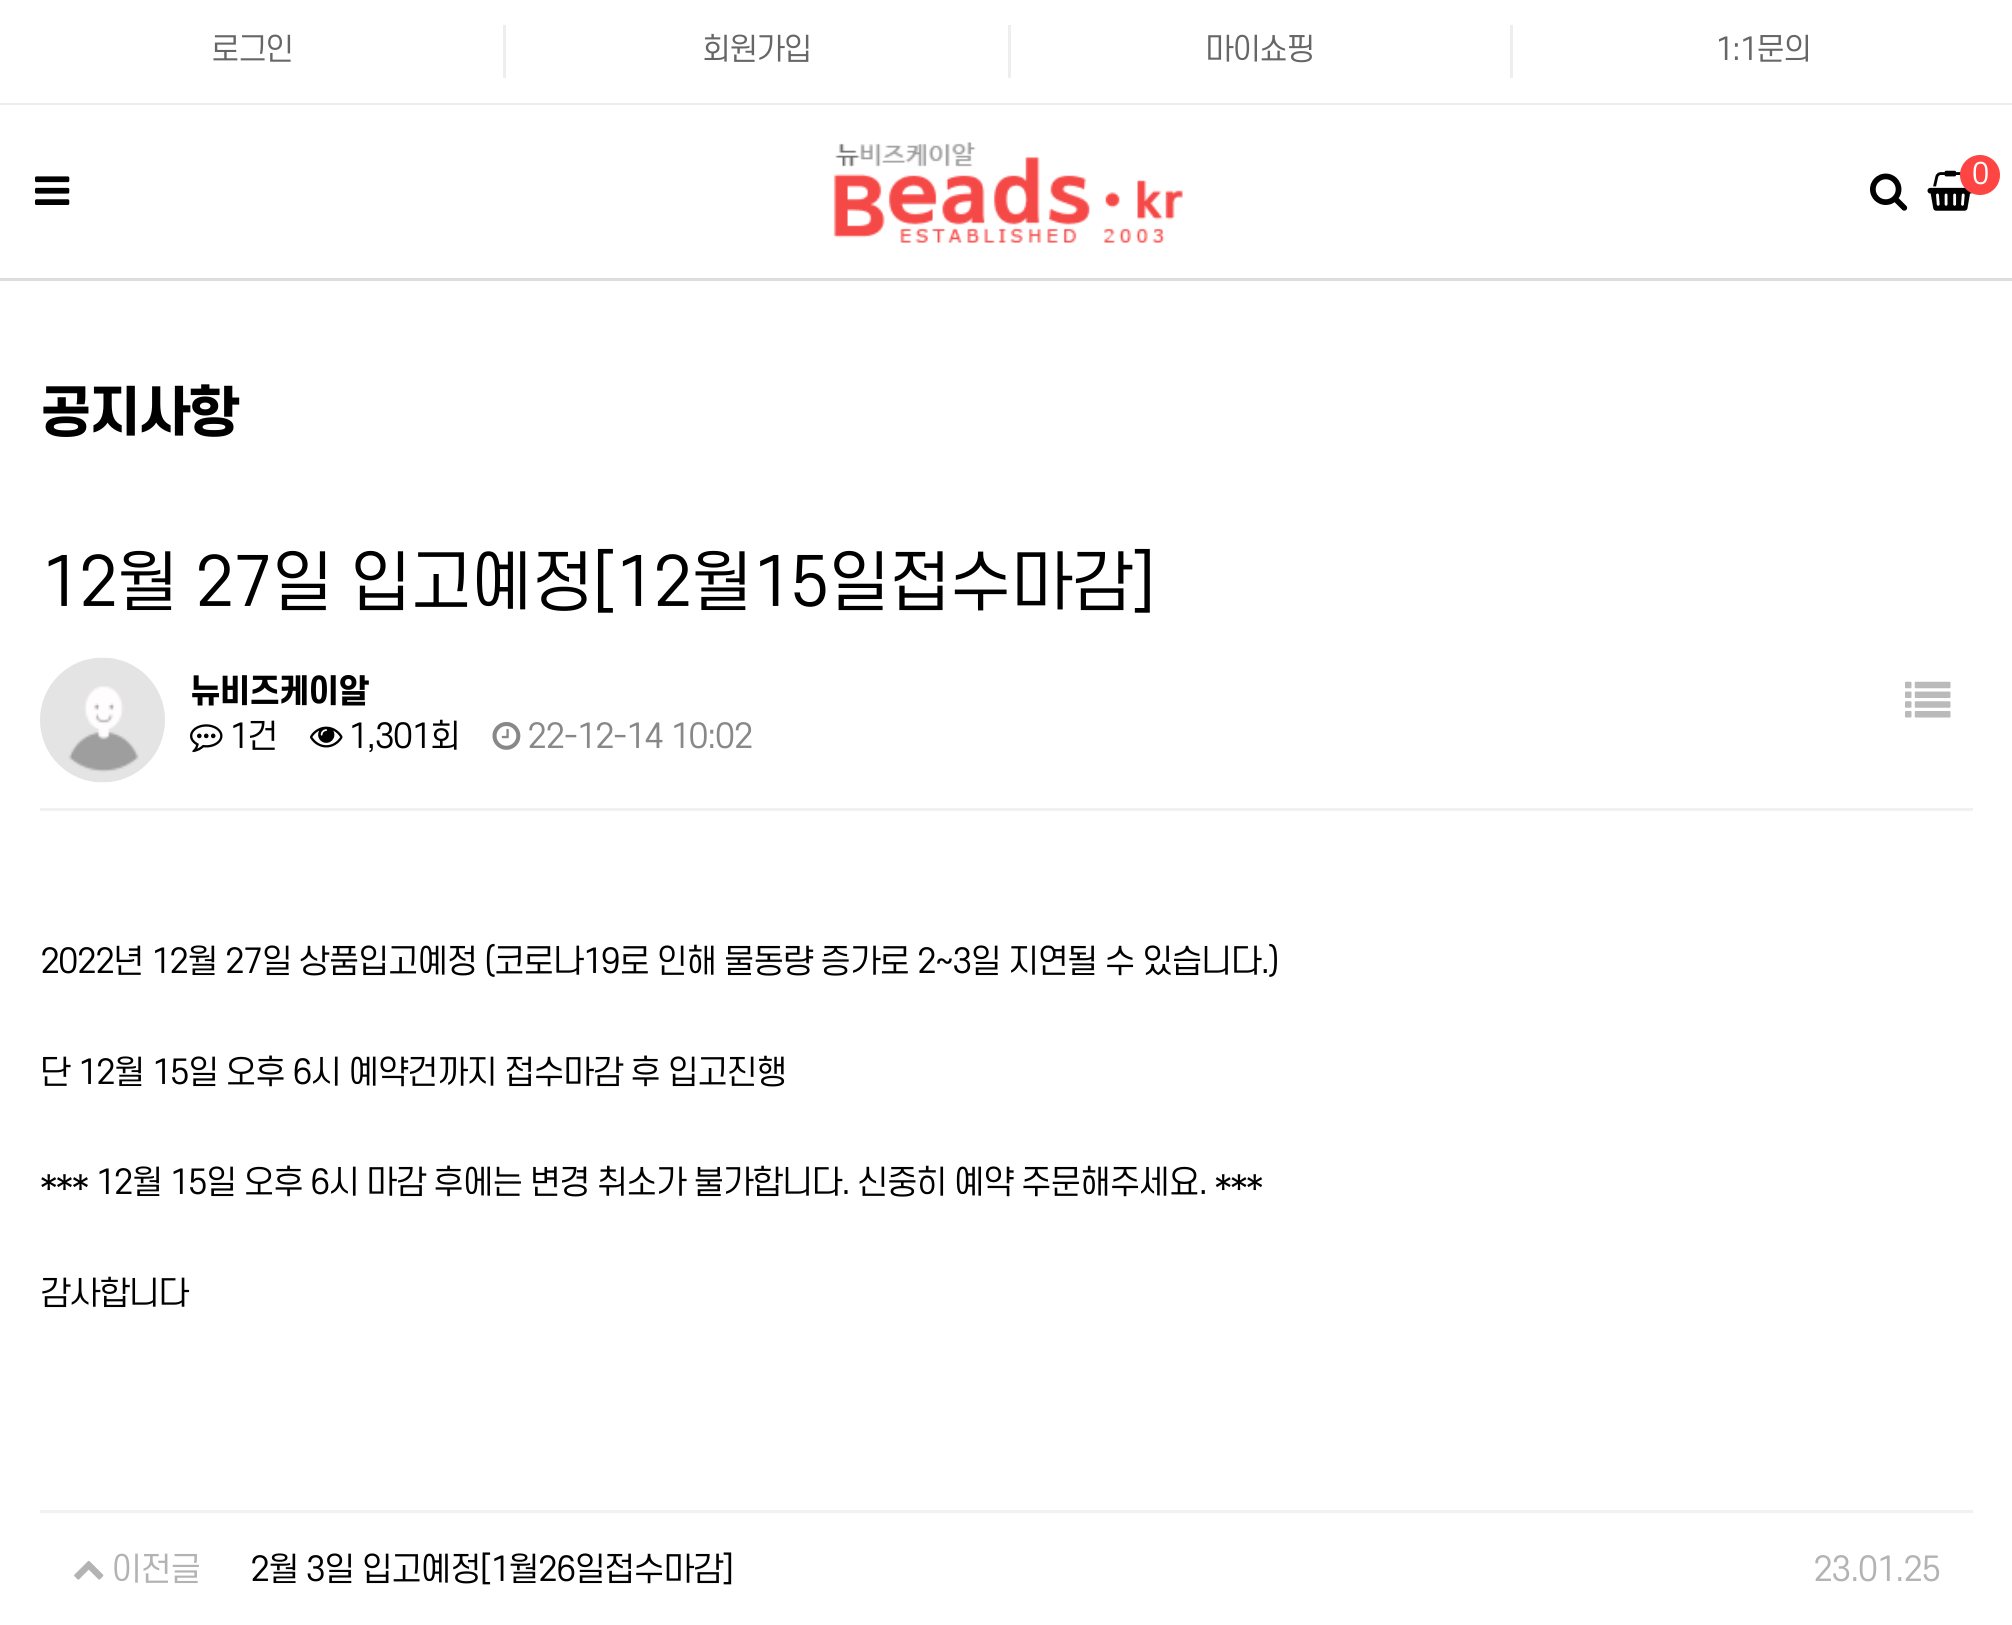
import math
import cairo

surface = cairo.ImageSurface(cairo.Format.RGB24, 2012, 1625)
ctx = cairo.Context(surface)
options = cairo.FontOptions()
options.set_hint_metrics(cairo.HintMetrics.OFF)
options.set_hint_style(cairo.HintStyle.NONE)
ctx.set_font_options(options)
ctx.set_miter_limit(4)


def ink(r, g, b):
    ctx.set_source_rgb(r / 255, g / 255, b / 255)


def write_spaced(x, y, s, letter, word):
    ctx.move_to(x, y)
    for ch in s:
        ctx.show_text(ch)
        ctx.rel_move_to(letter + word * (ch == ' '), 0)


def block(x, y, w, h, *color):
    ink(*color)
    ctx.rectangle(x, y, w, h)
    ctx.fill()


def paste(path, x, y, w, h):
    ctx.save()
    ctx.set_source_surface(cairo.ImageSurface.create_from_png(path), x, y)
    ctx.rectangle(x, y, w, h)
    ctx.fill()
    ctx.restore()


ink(255, 255, 255)
ctx.paint()
block(0, 103, 2012, 2, 238, 238, 238)
ctx.select_font_face("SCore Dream")
ctx.set_font_size(30)
ink(102, 102, 102)
write_spaced(211, 60, "로그인", -1.62, 0)
block(503, 25, 3, 53, 238, 238, 238)
ink(102, 102, 102)
write_spaced(702, 60, "회원가입", -1.62, 0)
block(1008, 25, 3, 53, 238, 238, 238)
ink(102, 102, 102)
write_spaced(1205, 60, "마이쇼핑", -1.62, 0)
block(1510, 25, 3, 53, 238, 238, 238)
ink(102, 102, 102)
write_spaced(1715, 60, "1:1문의", -1.62, 0)
block(0, 278, 2012, 3, 221, 221, 221)
paste("pic1.png", 833, 142, 350, 101)
paste("pic2.png", 35, 176, 35, 29)
paste("pic3.png", 1870, 173, 38, 38)
paste("pic4.png", 1927, 170, 45, 41)
ink(255, 68, 68)
ctx.arc(1980, 175, 20, 0, 2 * math.pi)
ctx.fill()
ctx.set_font_size(28)
ink(255, 255, 255)
write_spaced(1972, 184, "0", -1.62, 0)
ctx.select_font_face("SCore Dream ExtraBold")
ctx.set_font_size(54)
ink(0, 0, 0)
write_spaced(40, 432, "공지사항", -2.5, 0)
ctx.select_font_face("SCore Dream")
ctx.set_font_size(65)
write_spaced(40, 606, "12월 27일 입고예정[12월15일접수마감]", -1.62, 0)
block(40, 808, 1933, 3, 241, 241, 241)
paste("pic5.png", 40, 657, 125, 126)
ctx.select_font_face("SCore Dream ExtraBold")
ctx.set_font_size(32.5)
ink(0, 0, 0)
write_spaced(190, 703, "뉴비즈케이알", -1.62, 0)
paste("pic6.png", 190, 724, 33, 29)
ctx.select_font_face("SCore Dream")
write_spaced(229, 748, "1건", -1.62, 0)
paste("pic7.png", 310, 726, 33, 22)
write_spaced(348, 748, "1,301회", -1.62, 0)
paste("pic8.png", 492, 722, 29, 28)
ink(136, 136, 136)
write_spaced(527, 748, "22-12-14 10:02", -1.62, 0)
paste("pic9.png", 1905, 681, 46, 37)
ink(0, 0, 0)
write_spaced(40, 973, "2022년 12월 27일 상품입고예정 (코로나19로 인해 물동량 증가로 2~3일 지연될 수 있습니다.)", -1.62, 0)
write_spaced(40, 1084, "단 12월 15일 오후 6시 예약건까지 접수마감 후 입고진행", -1.62, 0)
write_spaced(40, 1194, "*** 12월 15일 오후 6시 마감 후에는 변경 취소가 불가합니다. 신중히 예약 주문해주세요. ***", -1.62, 0)
write_spaced(40, 1305, "감사합니다", -1.62, 0)
block(40, 1510, 1933, 3, 241, 241, 241)
paste("pic10.png", 74, 1560, 30, 20)
ink(179, 179, 179)
write_spaced(111, 1581, "이전글", -1.62, 0)
ink(0, 0, 0)
write_spaced(250, 1581, "2월 3일 입고예정[1월26일접수마감]", -1.62, 0)
ink(179, 179, 179)
write_spaced(1813, 1581, "23.01.25", -1.62, 0)
surface.write_to_png("screenshot.png")
